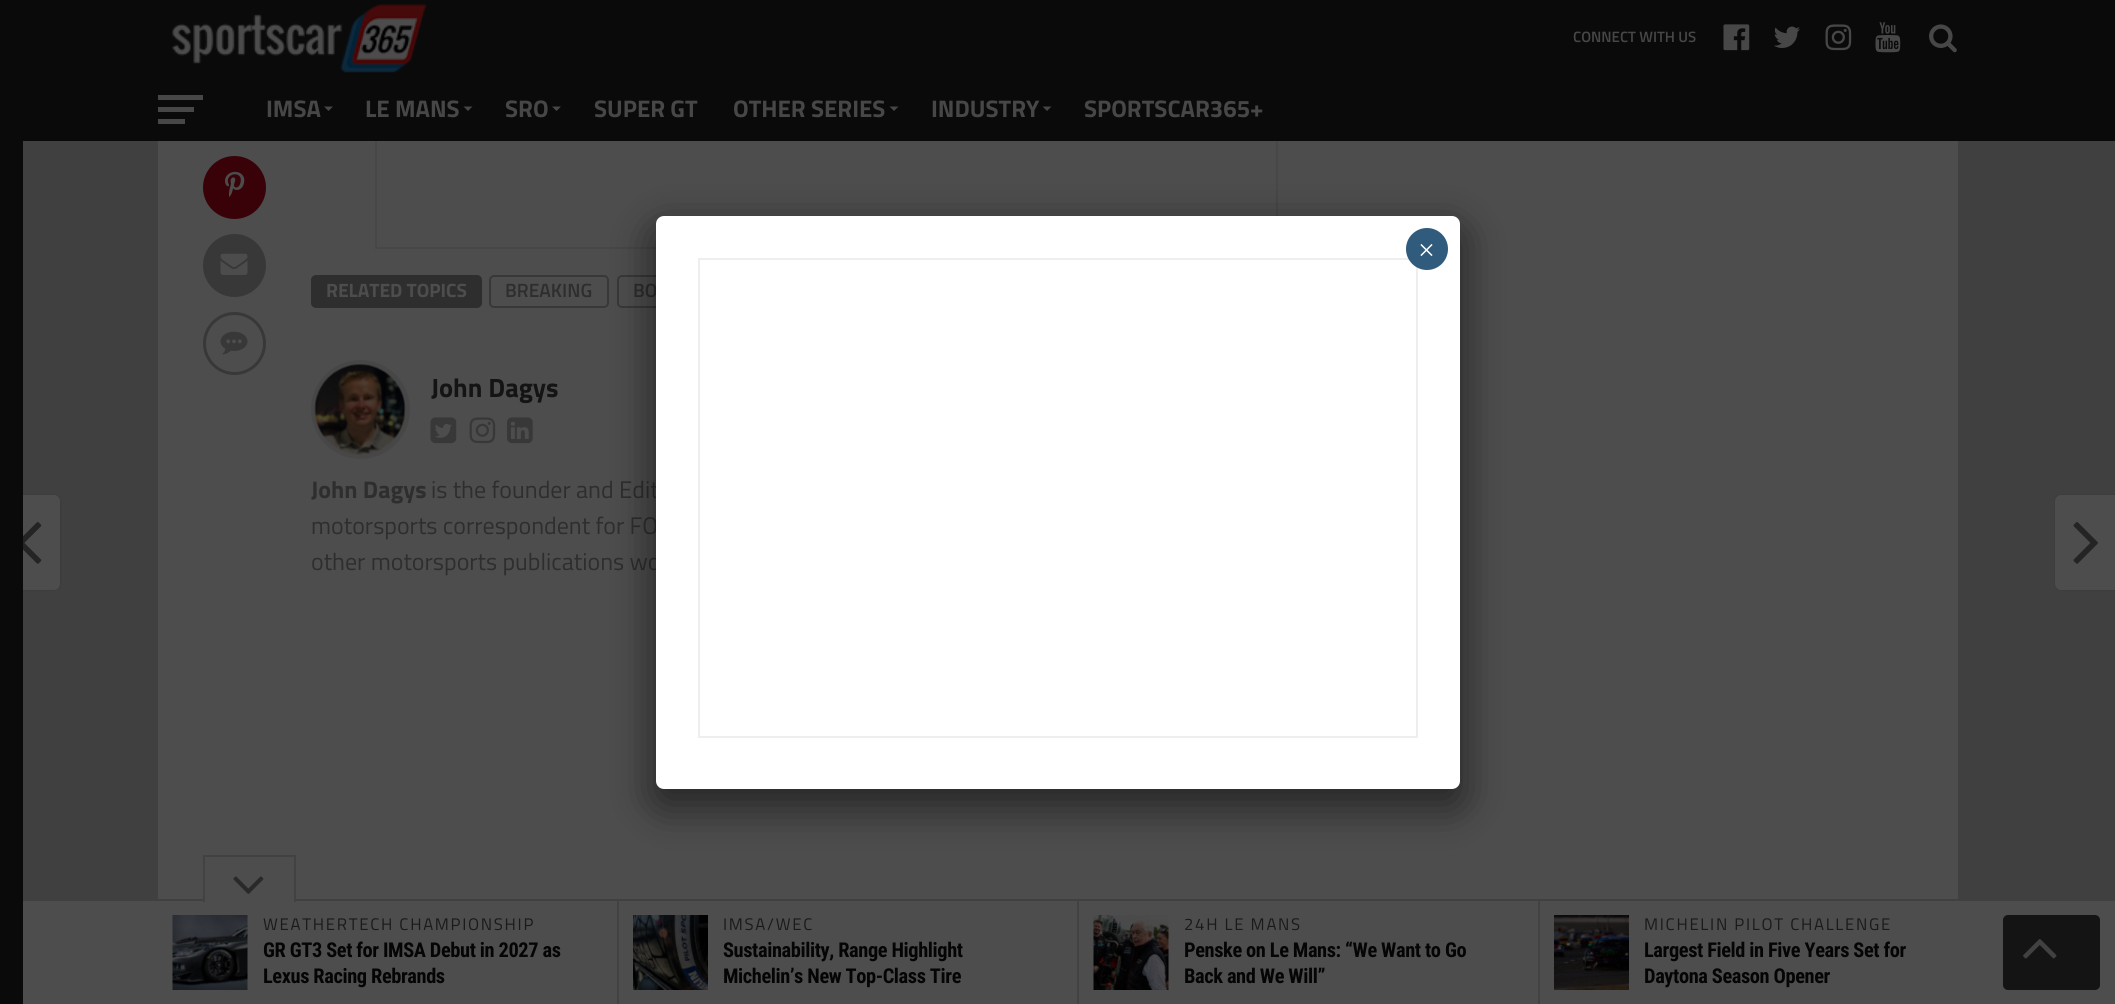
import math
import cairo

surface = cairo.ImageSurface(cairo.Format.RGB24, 2115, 1004)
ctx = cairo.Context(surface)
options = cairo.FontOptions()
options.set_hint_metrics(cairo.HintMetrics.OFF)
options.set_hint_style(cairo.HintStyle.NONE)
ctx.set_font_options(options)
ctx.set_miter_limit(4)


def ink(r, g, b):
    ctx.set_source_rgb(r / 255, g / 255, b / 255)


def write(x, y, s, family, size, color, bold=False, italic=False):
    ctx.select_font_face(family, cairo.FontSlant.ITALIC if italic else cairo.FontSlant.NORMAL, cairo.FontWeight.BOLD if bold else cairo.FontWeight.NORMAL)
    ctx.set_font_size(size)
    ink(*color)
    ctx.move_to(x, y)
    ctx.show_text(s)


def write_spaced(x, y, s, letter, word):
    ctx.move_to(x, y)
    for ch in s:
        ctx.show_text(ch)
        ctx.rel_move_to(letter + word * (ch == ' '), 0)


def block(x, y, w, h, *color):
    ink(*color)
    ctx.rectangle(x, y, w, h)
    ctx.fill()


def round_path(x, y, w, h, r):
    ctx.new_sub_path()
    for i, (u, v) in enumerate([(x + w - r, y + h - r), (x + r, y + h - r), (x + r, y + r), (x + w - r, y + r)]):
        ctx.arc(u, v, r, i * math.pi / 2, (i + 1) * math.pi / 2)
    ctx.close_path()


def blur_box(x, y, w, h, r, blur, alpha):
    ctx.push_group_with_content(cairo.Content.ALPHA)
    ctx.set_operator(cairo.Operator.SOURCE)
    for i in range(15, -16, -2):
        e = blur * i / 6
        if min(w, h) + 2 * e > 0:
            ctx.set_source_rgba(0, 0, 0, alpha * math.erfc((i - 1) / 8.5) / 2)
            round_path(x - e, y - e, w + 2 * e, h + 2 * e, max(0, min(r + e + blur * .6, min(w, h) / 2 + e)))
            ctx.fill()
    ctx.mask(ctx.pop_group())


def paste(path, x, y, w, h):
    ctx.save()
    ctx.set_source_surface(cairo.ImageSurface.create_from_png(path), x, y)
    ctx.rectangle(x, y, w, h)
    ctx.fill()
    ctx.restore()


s1 = dict(family="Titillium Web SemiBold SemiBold", size=15, color=(71, 71, 71))
s2 = dict(family="Titillium Web", size=24, color=(71, 71, 71), bold=True)
s3 = dict(family="Titillium Web", size=19.25, color=(77, 77, 77), bold=True)
s4 = dict(family="Titillium Web SemiBold SemiBold", size=19.25, color=(46, 46, 46))
s5 = dict(family="Titillium Web", size=26.5, color=(20, 20, 20), bold=True)
s6 = dict(family="Titillium Web", size=24, color=(46, 46, 46), bold=True)
s7 = dict(family="Titillium Web", size=24, color=(46, 46, 46))
s8 = dict(family="Liberation Serif", size=30, color=(255, 255, 255))

ink(64, 64, 64)
ctx.paint()
ink(77, 77, 77)
ctx.new_path()
ctx.move_to(0, 494)
ctx.line_to(54, 494)
ctx.curve_to(58.5, 494, 62, 497.5, 62, 502)
ctx.line_to(62, 583)
ctx.curve_to(62, 587.5, 58.5, 591, 54, 591)
ctx.line_to(0, 591)
ctx.close_path()
ctx.fill()
ink(61, 61, 61)
ctx.set_fill_rule(cairo.FillRule.EVEN_ODD)
ctx.new_path()
ctx.move_to(0, 494)
ctx.line_to(54, 494)
ctx.curve_to(58, 494, 62, 497, 62, 501)
ctx.line_to(62, 584)
ctx.curve_to(62, 588, 58, 591, 54, 591)
ctx.line_to(0, 591)
ctx.close_path()
ctx.move_to(0, 495)
ctx.line_to(54, 495)
ctx.curve_to(57, 495, 60, 498, 60, 501)
ctx.line_to(60, 584)
ctx.curve_to(60, 587, 57, 590, 54, 590)
ctx.line_to(0, 590)
ctx.close_path()
ctx.fill()
block(0, 0, 23, 1004, 10, 10, 10)
block(158, 141, 1800, 758, 77, 77, 77)
ctx.rectangle(376, -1, 901, 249)
ink(71, 71, 71)
ctx.stroke()
block(23, 0, 2092, 141, 10, 10, 10)
paste("pic1.png", 172, 4, 255, 69)
write(1573, 42, "CONNECT WITH US", **s1)
paste("pic2.png", 1723, 24, 27, 27)
paste("pic3.png", 1774, 26, 26, 22)
paste("pic4.png", 1825, 24, 27, 27)
paste("pic5.png", 1875, 22, 26, 31)
paste("pic6.png", 1929, 24, 28, 29)
block(158, 95, 45, 5, 71, 71, 71)
block(158, 107, 36, 5, 71, 71, 71)
block(158, 119, 27, 5, 71, 71, 71)
write(266, 117, "IMSA", **s2)
ctx.set_fill_rule(cairo.FillRule.WINDING)
ctx.new_path()
ctx.move_to(324, 106.5)
ctx.line_to(333, 106.5)
ctx.line_to(328.5, 111)
ctx.close_path()
ctx.fill()
write(365, 117, "LE MANS", **s2)
ctx.new_path()
ctx.move_to(463.5, 106.5)
ctx.line_to(472.5, 106.5)
ctx.line_to(468, 111)
ctx.close_path()
ctx.fill()
write(505, 117, "SRO", **s2)
ctx.new_path()
ctx.move_to(552, 106.5)
ctx.line_to(561, 106.5)
ctx.line_to(556.5, 111)
ctx.close_path()
ctx.fill()
write(594, 117, "SUPER GT", **s2)
write(733, 117, "OTHER SERIES", **s2)
ctx.new_path()
ctx.move_to(889.5, 106.5)
ctx.line_to(898.5, 106.5)
ctx.line_to(894, 111)
ctx.close_path()
ctx.fill()
write(931, 117, "INDUSTRY", **s2)
ctx.new_path()
ctx.move_to(1042.5, 106.5)
ctx.line_to(1051.5, 106.5)
ctx.line_to(1047, 111)
ctx.close_path()
ctx.fill()
write(1084, 117, "SPORTSCAR365+", **s2)
ink(57, 2, 8)
ctx.new_path()
ctx.arc(234.5, 187.5, 31.5, 0, 2 * math.pi)
ctx.fill()
paste("pic7.png", 225, 171, 20, 26)
ink(56, 56, 56)
ctx.arc(234.5, 265.5, 31.5, 0, 2 * math.pi)
ctx.fill()
paste("pic8.png", 220, 253, 28, 22)
ctx.arc(234.5, 343.5, 30, 0, 2 * math.pi)
ctx.set_line_width(3)
ctx.stroke()
paste("pic9.png", 220, 331, 28, 24)
ink(46, 46, 46)
round_path(311, 275, 171, 33, 5)
ctx.fill()
write(326, 297, "RELATED TOPICS", **s3)
round_path(490, 276, 118, 31, 4)
ink(56, 56, 56)
ctx.set_line_width(2)
ctx.stroke()
write(505, 297, "BREAKING", **s4)
round_path(618, 276, 79, 31, 4)
ink(56, 56, 56)
ctx.stroke()
write(633, 297, "BO", **s4)
ctx.new_path()
ctx.arc(360.5, 409.5, 47, 0, 2 * math.pi)
ink(71, 71, 71)
ctx.set_line_width(5)
ctx.stroke()
paste("pic10.png", 314, 364, 92, 91)
write(431, 397, "John Dagys", **s5)
paste("pic11.png", 430, 417, 27, 27)
paste("pic12.png", 469, 417, 27, 27)
paste("pic13.png", 507, 417, 26, 27)
write(311, 498, "John Dagys", **s6)
write(431, 498, "is the founder and Edit", **s7)
write(311, 534, "motorsports correspondent for FO", **s7)
write(311, 570, "other motorsports publications wo", **s7)
paste("pic14.png", 23, 522, 19, 42)
ink(77, 77, 77)
ctx.new_path()
ctx.move_to(2062, 494)
ctx.line_to(2115, 494)
ctx.line_to(2115, 591)
ctx.line_to(2062, 591)
ctx.curve_to(2057.5, 591, 2054, 587.5, 2054, 583)
ctx.line_to(2054, 502)
ctx.curve_to(2054, 497.5, 2057.5, 494, 2062, 494)
ctx.close_path()
ctx.fill()
ink(61, 61, 61)
ctx.set_fill_rule(cairo.FillRule.EVEN_ODD)
ctx.new_path()
ctx.move_to(2061, 494)
ctx.line_to(2115, 494)
ctx.line_to(2115, 591)
ctx.line_to(2061, 591)
ctx.curve_to(2057, 591, 2054, 588, 2054, 584)
ctx.line_to(2054, 501)
ctx.curve_to(2054, 497, 2057, 494, 2061, 494)
ctx.close_path()
ctx.move_to(2061, 495)
ctx.line_to(2115, 495)
ctx.line_to(2115, 590)
ctx.line_to(2061, 590)
ctx.curve_to(2058, 590, 2055, 587, 2055, 584)
ctx.line_to(2055, 501)
ctx.curve_to(2055, 498, 2058, 495, 2061, 495)
ctx.close_path()
ctx.fill()
paste("pic15.png", 2073, 522, 25, 42)
ink(2, 2, 2)
blur_box(650, 225, 816, 585, 14, 19, 0.5)
ink(255, 255, 255)
round_path(656, 216, 804, 573, 8)
ctx.fill()
ctx.rectangle(699, 259, 718, 478)
ink(238, 238, 238)
ctx.set_line_width(2)
ctx.stroke()
ink(49, 91, 124)
ctx.arc(1427, 249, 21, 0, 2 * math.pi)
ctx.fill()
write(1418, 260, "×", **s8)
block(23, 901, 2092, 103, 77, 77, 77)
block(205, 899, 89, 2, 77, 77, 77)
block(203, 855, 93, 2, 66, 66, 66)
block(294, 855, 2, 47, 66, 66, 66)
block(203, 855, 2, 47, 66, 66, 66)
paste("pic16.png", 233, 876, 31, 18)
paste("pic17.png", 172, 915, 76, 75)
ctx.select_font_face("Titillium Web")
ctx.set_font_size(16.75)
ink(26, 26, 26)
write_spaced(263, 930, "WEATHERTECH CHAMPIONSHIP", 1.7, 0)
ctx.select_font_face("Roboto Condensed", cairo.FontSlant.NORMAL, cairo.FontWeight.BOLD)
ctx.set_font_size(20.4)
ink(5, 5, 5)
write_spaced(263, 957, "GR GT3 Set for IMSA Debut in 2027 as", -0.4, 0)
write_spaced(263, 983, "Lexus Racing Rebrands", -0.4, 0)
block(617, 900, 2, 104, 66, 66, 66)
paste("pic18.png", 633, 915, 75, 75)
ctx.select_font_face("Titillium Web")
ctx.set_font_size(16.75)
ink(26, 26, 26)
write_spaced(723, 930, "IMSA/WEC", 1.7, 0)
ctx.select_font_face("Roboto Condensed", cairo.FontSlant.NORMAL, cairo.FontWeight.BOLD)
ctx.set_font_size(20.4)
ink(5, 5, 5)
write_spaced(723, 957, "Sustainability, Range Highlight", -0.4, 0)
write_spaced(723, 983, "Michelin’s New Top-Class Tire", -0.4, 0)
block(1077, 900, 2, 104, 66, 66, 66)
paste("pic19.png", 1093, 915, 76, 75)
ctx.select_font_face("Titillium Web")
ctx.set_font_size(16.75)
ink(26, 26, 26)
write_spaced(1184, 930, "24H LE MANS", 1.7, 0)
ctx.select_font_face("Roboto Condensed", cairo.FontSlant.NORMAL, cairo.FontWeight.BOLD)
ctx.set_font_size(20.4)
ink(5, 5, 5)
write_spaced(1184, 957, "Penske on Le Mans: “We Want to Go", -0.4, 0)
write_spaced(1184, 983, "Back and We Will”", -0.4, 0)
block(1538, 900, 2, 104, 66, 66, 66)
paste("pic20.png", 1554, 915, 75, 75)
ctx.select_font_face("Titillium Web")
ctx.set_font_size(16.75)
ink(26, 26, 26)
write_spaced(1644, 930, "MICHELIN PILOT CHALLENGE", 1.7, 0)
ctx.select_font_face("Roboto Condensed", cairo.FontSlant.NORMAL, cairo.FontWeight.BOLD)
ctx.set_font_size(20.4)
ink(5, 5, 5)
write_spaced(1644, 957, "Largest Field in Five Years Set for", -0.4, 0)
write_spaced(1644, 983, "Daytona Season Opener", -0.4, 0)
ink(20, 20, 20)
round_path(2003, 915, 97, 75, 5)
ctx.fill()
paste("pic21.png", 2023, 939, 34, 20)
surface.write_to_png("screenshot.png")
